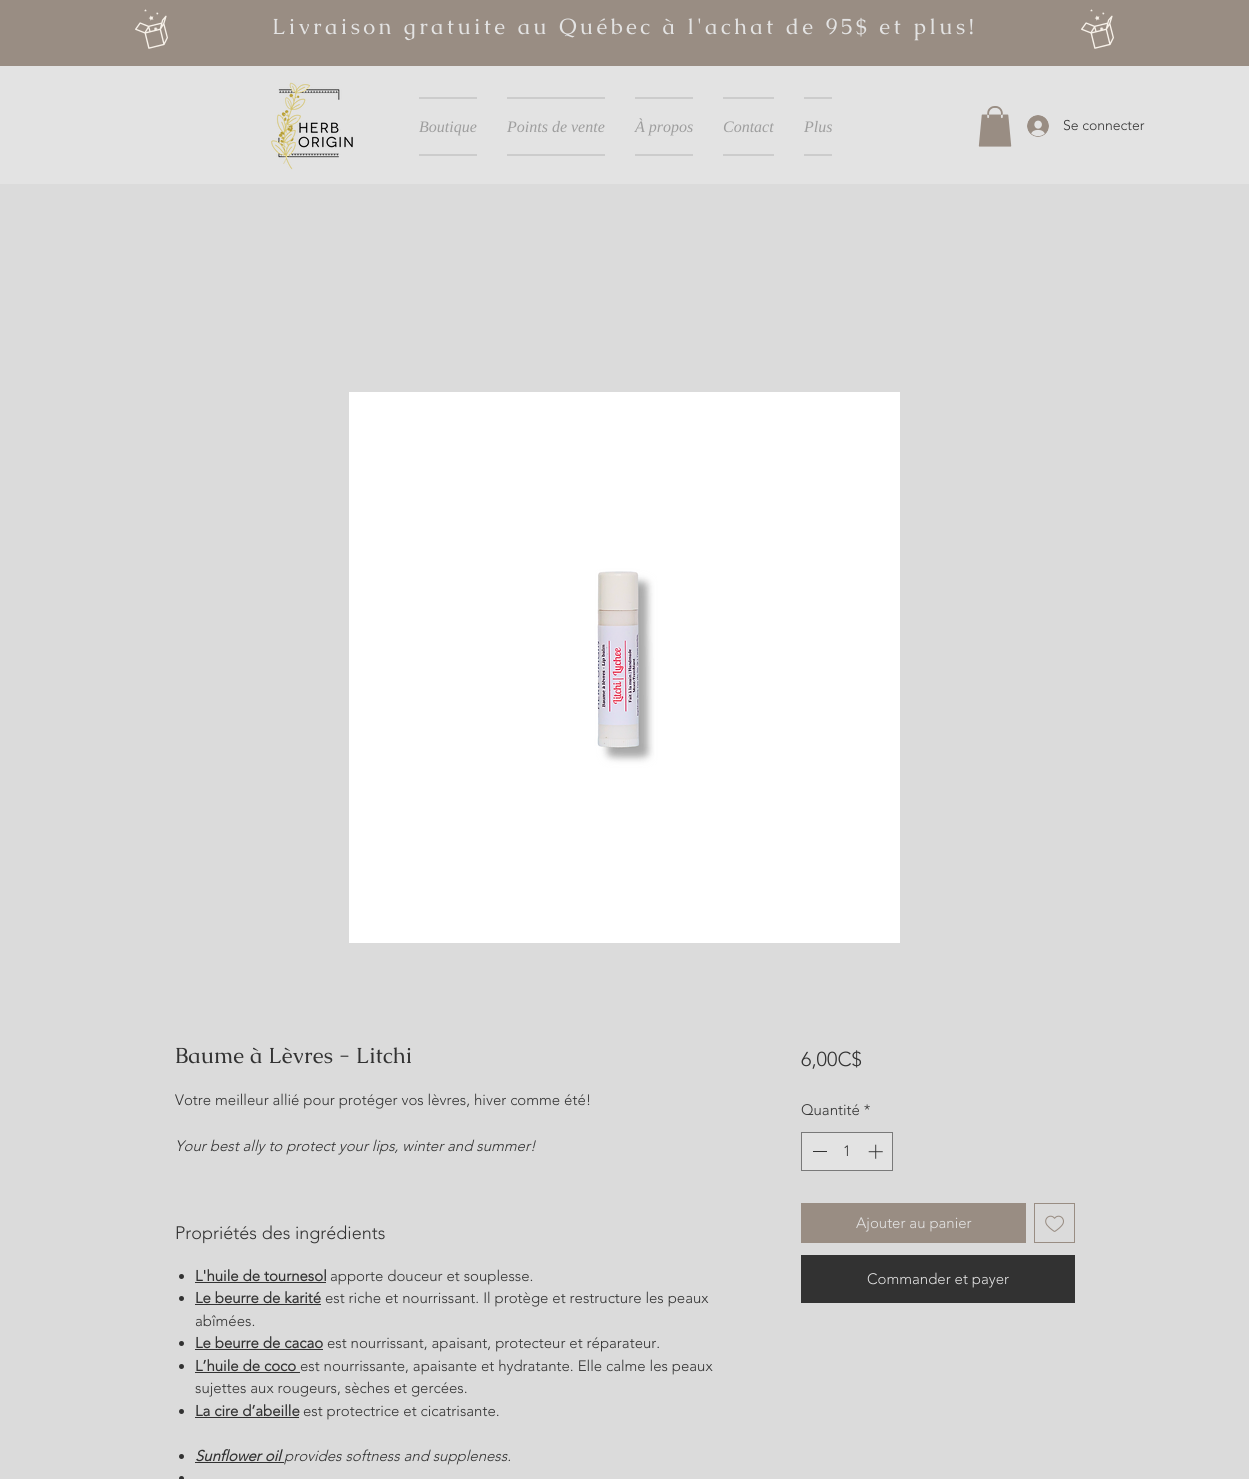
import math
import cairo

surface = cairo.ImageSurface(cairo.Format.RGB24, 1249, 1479)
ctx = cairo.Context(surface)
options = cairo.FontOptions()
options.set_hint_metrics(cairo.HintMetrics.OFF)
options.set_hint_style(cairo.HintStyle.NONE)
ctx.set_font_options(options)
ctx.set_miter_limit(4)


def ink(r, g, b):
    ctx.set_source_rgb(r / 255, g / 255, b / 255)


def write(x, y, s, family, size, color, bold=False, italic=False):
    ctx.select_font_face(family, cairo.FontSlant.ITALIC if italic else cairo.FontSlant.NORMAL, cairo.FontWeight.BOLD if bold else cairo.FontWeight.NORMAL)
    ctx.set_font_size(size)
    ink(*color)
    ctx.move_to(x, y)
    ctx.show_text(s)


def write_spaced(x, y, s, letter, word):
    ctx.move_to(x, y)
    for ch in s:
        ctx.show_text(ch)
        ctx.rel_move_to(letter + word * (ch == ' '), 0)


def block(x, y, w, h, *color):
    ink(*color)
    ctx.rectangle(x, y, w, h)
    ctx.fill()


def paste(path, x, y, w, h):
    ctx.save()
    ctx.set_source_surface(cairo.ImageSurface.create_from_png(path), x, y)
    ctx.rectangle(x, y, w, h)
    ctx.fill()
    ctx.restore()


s1 = dict(family="Liberation Serif", size=16, color=(158, 158, 158), italic=True)
s2 = dict(family="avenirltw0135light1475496 Light", size=14, color=(50, 50, 50))
s3 = dict(family="Caudex", size=22, color=(50, 50, 50))
s4 = dict(family="avenirltw0135light1475496 Light", size=15, color=(50, 50, 50))
s5 = dict(family="avenirltw0135light1475496 Light", size=15, color=(50, 50, 50), italic=True)
s6 = dict(family="avenirltw0135light1475496 Light", size=18, color=(50, 50, 50))
s7 = dict(family="avenirltw0135light1475496", size=15, color=(50, 50, 50), bold=True)
s8 = dict(family="avenirltw0135light1475496", size=15, color=(50, 50, 50), bold=True, italic=True)
s9 = dict(family="avenirltw0135light1475496 Light", size=20, color=(50, 50, 50))
s10 = dict(family="avenirltw0135light1475496 Light", size=15, color=(227, 227, 227))

ink(219, 219, 219)
ctx.paint()
block(0, 0, 1249, 66, 153, 141, 131)
paste("pic1.png", 135, 9, 33, 40)
ctx.select_font_face("Caudex")
ctx.set_font_size(22)
ink(227, 227, 227)
write_spaced(272, 34, "Livraison gratuite au Québec à l'achat de 95$ et plus!", 3.3, 0)
paste("pic1.png", 1081, 9, 33, 40)
block(0, 66, 1249, 118, 227, 227, 227)
paste("pic2.png", 271, 82, 82, 88)
block(419, 97, 58, 2, 204, 204, 204)
block(419, 154, 58, 2, 204, 204, 204)
write(419, 132, "Boutique", **s1)
block(507, 97, 98, 2, 204, 204, 204)
block(507, 154, 98, 2, 204, 204, 204)
write(507, 132, "Points de vente", **s1)
block(635, 97, 58, 2, 204, 204, 204)
block(635, 154, 58, 2, 204, 204, 204)
write(635, 132, "À propos", **s1)
block(723, 97, 51, 2, 204, 204, 204)
block(723, 154, 51, 2, 204, 204, 204)
write(723, 132, "Contact", **s1)
block(804, 97, 28, 2, 204, 204, 204)
block(804, 154, 28, 2, 204, 204, 204)
write(804, 132, "Plus", **s1)
paste("pic3.png", 978, 106, 34, 41)
paste("pic4.png", 1027, 115, 22, 22)
write(1063, 130, "Se connecter", **s2)
paste("pic5.png", 349, 392, 551, 551)
write(175, 1063, "Baume à Lèvres - Litchi", **s3)
write(175, 1105, "Votre meilleur allié pour protéger vos lèvres, hiver comme été!", **s4)
write(175, 1151, "Your best ally to protect your lips, winter and summer!", **s5)
write(175, 1239, "Propriétés des ingrédients", **s6)
ctx.new_path()
ctx.arc(181.5, 1276.5, 2.5, 0, 2 * math.pi)
ctx.fill()
write(195, 1281, "L'huile de tournesol", **s7)
block(195, 1282, 131, 1, 50, 50, 50)
write(330, 1281, "apporte douceur et souplesse.", **s4)
ctx.new_path()
ctx.arc(181.5, 1298.5, 2.5, 0, 2 * math.pi)
ctx.fill()
write(195, 1303, "Le beurre de karité", **s7)
block(195, 1304, 126, 1, 50, 50, 50)
write(325, 1303, "est riche et nourrissant. Il protège et restructure les peaux", **s4)
write(195, 1326, "abîmées.", **s4)
ctx.new_path()
ctx.arc(181.5, 1343.5, 2.5, 0, 2 * math.pi)
ctx.fill()
write(195, 1348, "Le beurre de cacao", **s7)
block(195, 1349, 128, 1, 50, 50, 50)
write(327, 1348, "est nourrissant, apaisant, protecteur et réparateur.", **s4)
ctx.new_path()
ctx.arc(181.5, 1366.5, 2.5, 0, 2 * math.pi)
ctx.fill()
write(195, 1371, "L’huile de coco", **s7)
block(195, 1372, 105, 1, 50, 50, 50)
write(300, 1371, "est nourrissante, apaisante et hydratante. Elle calme les peaux", **s4)
write(195, 1393, "sujettes aux rougeurs, sèches et gercées.", **s4)
ctx.new_path()
ctx.arc(181.5, 1411.5, 2.5, 0, 2 * math.pi)
ctx.fill()
write(195, 1416, "La cire d’abeille", **s7)
block(195, 1417, 104, 1, 50, 50, 50)
write(303, 1416, "est protectrice et cicatrisante.", **s4)
ctx.new_path()
ctx.arc(181.5, 1456.5, 2.5, 0, 2 * math.pi)
ctx.fill()
write(195, 1461, "Sunflower oil", **s8)
write(284, 1461, "provides softness and suppleness.", **s5)
block(195, 1462, 89, 1, 50, 50, 50)
ctx.new_path()
ctx.arc(181.5, 1478.5, 2.5, 0, 2 * math.pi)
ctx.fill()
write(801, 1066, "6,00C$", **s9)
write(801, 1115, "Quantité *", **s4)
ink(227, 227, 227)
ctx.rectangle(801.5, 1132.5, 91, 38)
ctx.fill_preserve()
ink(121, 121, 121)
ctx.set_line_width(1)
ctx.stroke()
block(813, 1151, 14, 1, 50, 50, 50)
write(843, 1156, "1", **s4)
paste("pic6.png", 868, 1144, 15, 15)
block(801, 1203, 225, 40, 153, 141, 131)
write(856, 1228, "Ajouter au panier", **s10)
ctx.rectangle(1034.5, 1203.5, 40, 39)
ink(153, 141, 131)
ctx.stroke()
paste("pic7.png", 1045, 1215, 19, 17)
block(801, 1255, 274, 48, 50, 50, 50)
write(867, 1284, "Commander et payer", **s10)
surface.write_to_png("screenshot.png")
